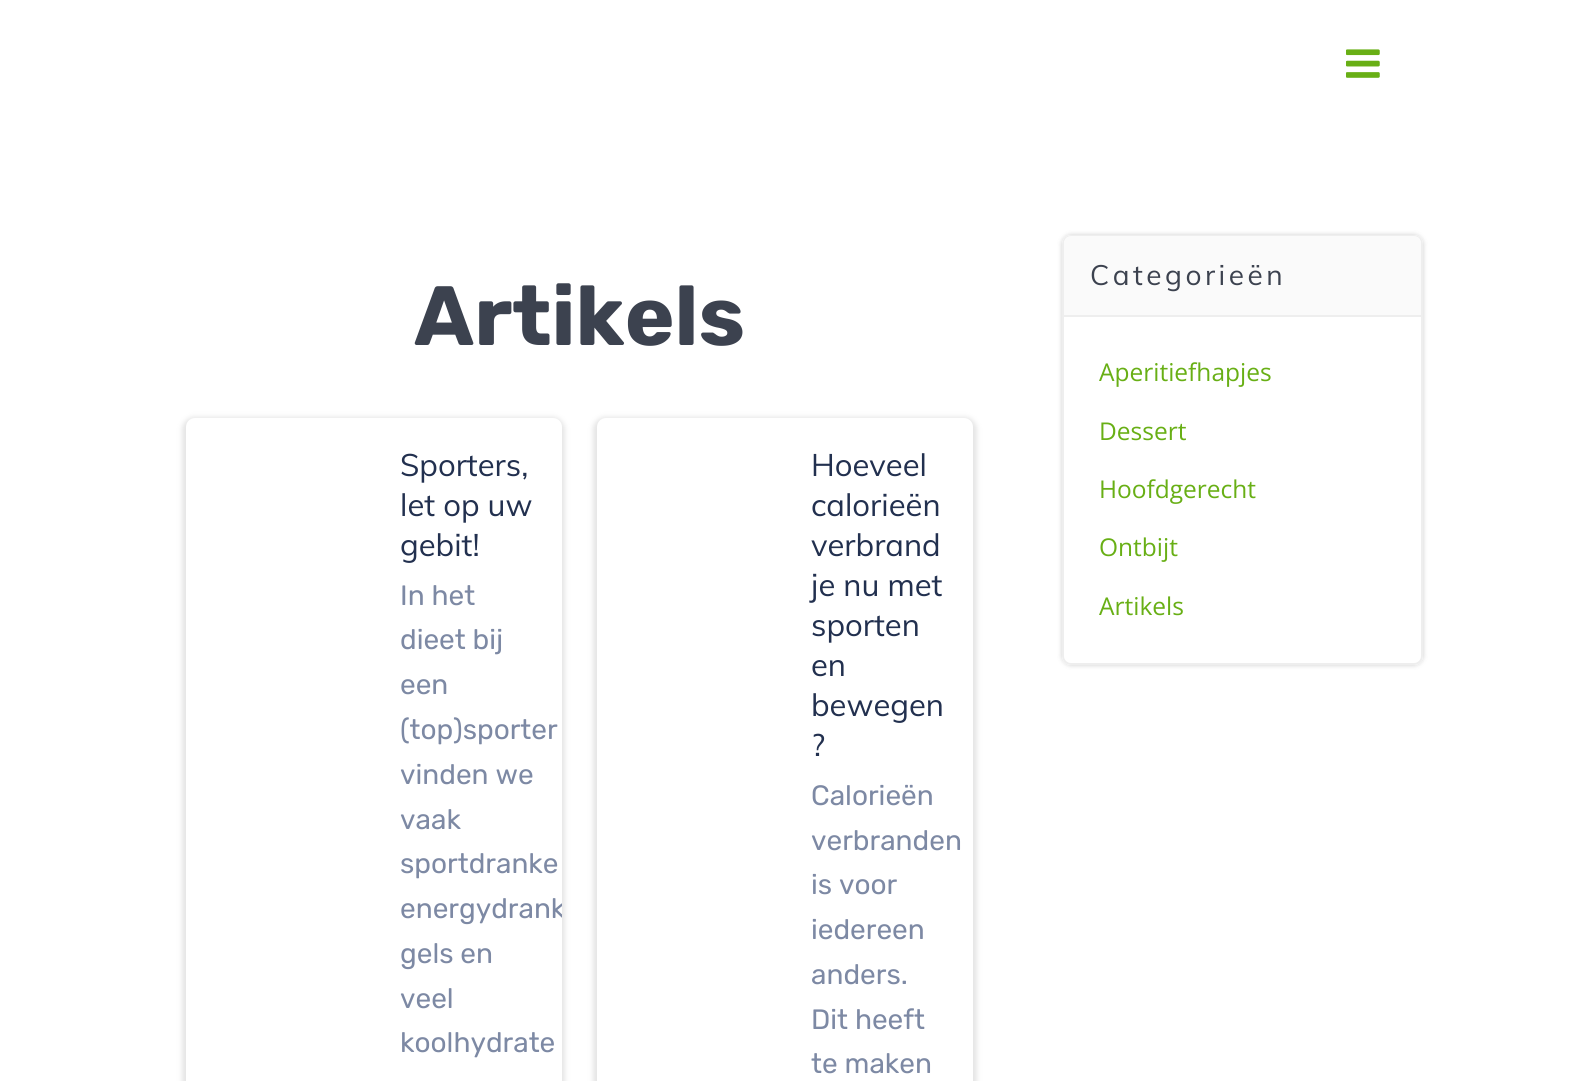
import math
import cairo

surface = cairo.ImageSurface(cairo.Format.RGB24, 1595, 1081)
ctx = cairo.Context(surface)
options = cairo.FontOptions()
options.set_hint_metrics(cairo.HintMetrics.OFF)
options.set_hint_style(cairo.HintStyle.NONE)
ctx.set_font_options(options)
ctx.set_miter_limit(4)


def ink(r, g, b):
    ctx.set_source_rgb(r / 255, g / 255, b / 255)


def write(x, y, s, family, size, color, bold=False, italic=False):
    ctx.select_font_face(family, cairo.FontSlant.ITALIC if italic else cairo.FontSlant.NORMAL, cairo.FontWeight.BOLD if bold else cairo.FontWeight.NORMAL)
    ctx.set_font_size(size)
    ink(*color)
    ctx.move_to(x, y)
    ctx.show_text(s)


def write_spaced(x, y, s, letter, word):
    ctx.move_to(x, y)
    for ch in s:
        ctx.show_text(ch)
        ctx.rel_move_to(letter + word * (ch == ' '), 0)


def block(x, y, w, h, *color):
    ink(*color)
    ctx.rectangle(x, y, w, h)
    ctx.fill()


def round_path(x, y, w, h, r):
    ctx.new_sub_path()
    for i, (u, v) in enumerate([(x + w - r, y + h - r), (x + r, y + h - r), (x + r, y + r), (x + w - r, y + r)]):
        ctx.arc(u, v, r, i * math.pi / 2, (i + 1) * math.pi / 2)
    ctx.close_path()


def blur_box(x, y, w, h, r, blur, alpha):
    ctx.push_group_with_content(cairo.Content.ALPHA)
    ctx.set_operator(cairo.Operator.SOURCE)
    for i in range(15, -16, -2):
        e = blur * i / 6
        if min(w, h) + 2 * e > 0:
            ctx.set_source_rgba(0, 0, 0, alpha * math.erfc((i - 1) / 8.5) / 2)
            round_path(x - e, y - e, w + 2 * e, h + 2 * e, max(0, min(r + e + blur * .6, min(w, h) / 2 + e)))
            ctx.fill()
    ctx.mask(ctx.pop_group())


def paste(path, x, y, w, h):
    ctx.save()
    ctx.set_source_surface(cairo.ImageSurface.create_from_png(path), x, y)
    ctx.rectangle(x, y, w, h)
    ctx.fill()
    ctx.restore()


s1 = dict(family="Rubik", size=84, color=(60, 66, 79), bold=True)
s2 = dict(family="Muli", size=31, color=(34, 48, 79))
s3 = dict(family="Rubik", size=28, color=(125, 137, 164))
s4 = dict(family="Open Sans", size=24.5, color=(104, 175, 21))

ink(255, 255, 255)
ctx.paint()
paste("pic1.png", 1346, 49, 34, 29)
write(414, 345, "Artikels", **s1)
ink(189, 189, 189)
blur_box(182, 417, 383, 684, 12, 2.5, 0.4)
ink(255, 255, 255)
round_path(186, 418, 376, 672, 9)
ctx.fill()
write(400, 476, "Sporters,", **s2)
write(400, 516, "let op uw", **s2)
write(400, 556, "gebit!", **s2)
write(400, 605, "In het", **s3)
write(400, 649, "dieet bij", **s3)
write(400, 694, "een", **s3)
write(400, 739, "(top)sporter", **s3)
write(400, 784, "vinden we", **s3)
write(400, 829, "vaak", **s3)
write(400, 873, "sportdranke", **s3)
ctx.save()
ctx.rectangle(186, 418, 376, 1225)
ctx.clip()
write(400, 918, "energydrank", **s3)
ctx.restore()
write(400, 963, "gels en", **s3)
write(400, 1008, "veel", **s3)
write(400, 1052, "koolhydrate", **s3)
ink(189, 189, 189)
blur_box(593, 417, 384, 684, 12, 2.5, 0.4)
ink(255, 255, 255)
round_path(597, 418, 376, 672, 9)
ctx.fill()
write(811, 476, "Hoeveel", **s2)
write(811, 516, "calorieën", **s2)
write(811, 556, "verbrand", **s2)
write(811, 596, "je nu met", **s2)
write(811, 636, "sporten", **s2)
write(811, 676, "en", **s2)
write(811, 716, "bewegen", **s2)
write(811, 756, "?", **s2)
write(811, 805, "Calorieën", **s3)
write(811, 850, "verbranden", **s3)
write(811, 894, "is voor", **s3)
write(811, 939, "iedereen", **s3)
write(811, 984, "anders.", **s3)
write(811, 1029, "Dit heeft", **s3)
write(811, 1073, "te maken", **s3)
ctx.save()
ctx.set_fill_rule(cairo.FillRule.EVEN_ODD)
ctx.new_path()
ctx.move_to(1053, 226)
ctx.line_to(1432, 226)
ctx.line_to(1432, 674)
ctx.line_to(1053, 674)
ctx.close_path()
ctx.move_to(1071, 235)
ctx.line_to(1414, 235)
ctx.curve_to(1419, 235, 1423, 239, 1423, 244)
ctx.line_to(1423, 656)
ctx.curve_to(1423, 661, 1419, 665, 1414, 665)
ctx.line_to(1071, 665)
ctx.curve_to(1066, 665, 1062, 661, 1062, 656)
ctx.line_to(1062, 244)
ctx.curve_to(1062, 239, 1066, 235, 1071, 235)
ctx.close_path()
ctx.clip()
ink(0, 0, 0)
blur_box(1062, 235, 361, 430, 9, 2.5, 0.2)
ctx.restore()
round_path(1063, 236, 359, 428, 8)
ink(238, 238, 238)
ctx.stroke()
ink(250, 250, 250)
ctx.new_path()
ctx.move_to(1071, 236)
ctx.line_to(1414, 236)
ctx.curve_to(1418, 236, 1421, 239, 1421, 243)
ctx.line_to(1421, 315)
ctx.line_to(1064, 315)
ctx.line_to(1064, 243)
ctx.curve_to(1064, 239, 1067, 236, 1071, 236)
ctx.close_path()
ctx.fill()
block(1064, 315, 357, 2, 238, 238, 238)
ctx.select_font_face("Muli")
ink(60, 66, 79)
write_spaced(1090, 285, "Categorieën", 3.5, 0)
write(1099, 381, "Aperitiefhapjes", **s4)
write(1099, 440, "Dessert", **s4)
write(1099, 498, "Hoofdgerecht", **s4)
write(1099, 556, "Ontbijt", **s4)
write(1099, 615, "Artikels", **s4)
surface.write_to_png("screenshot.png")
